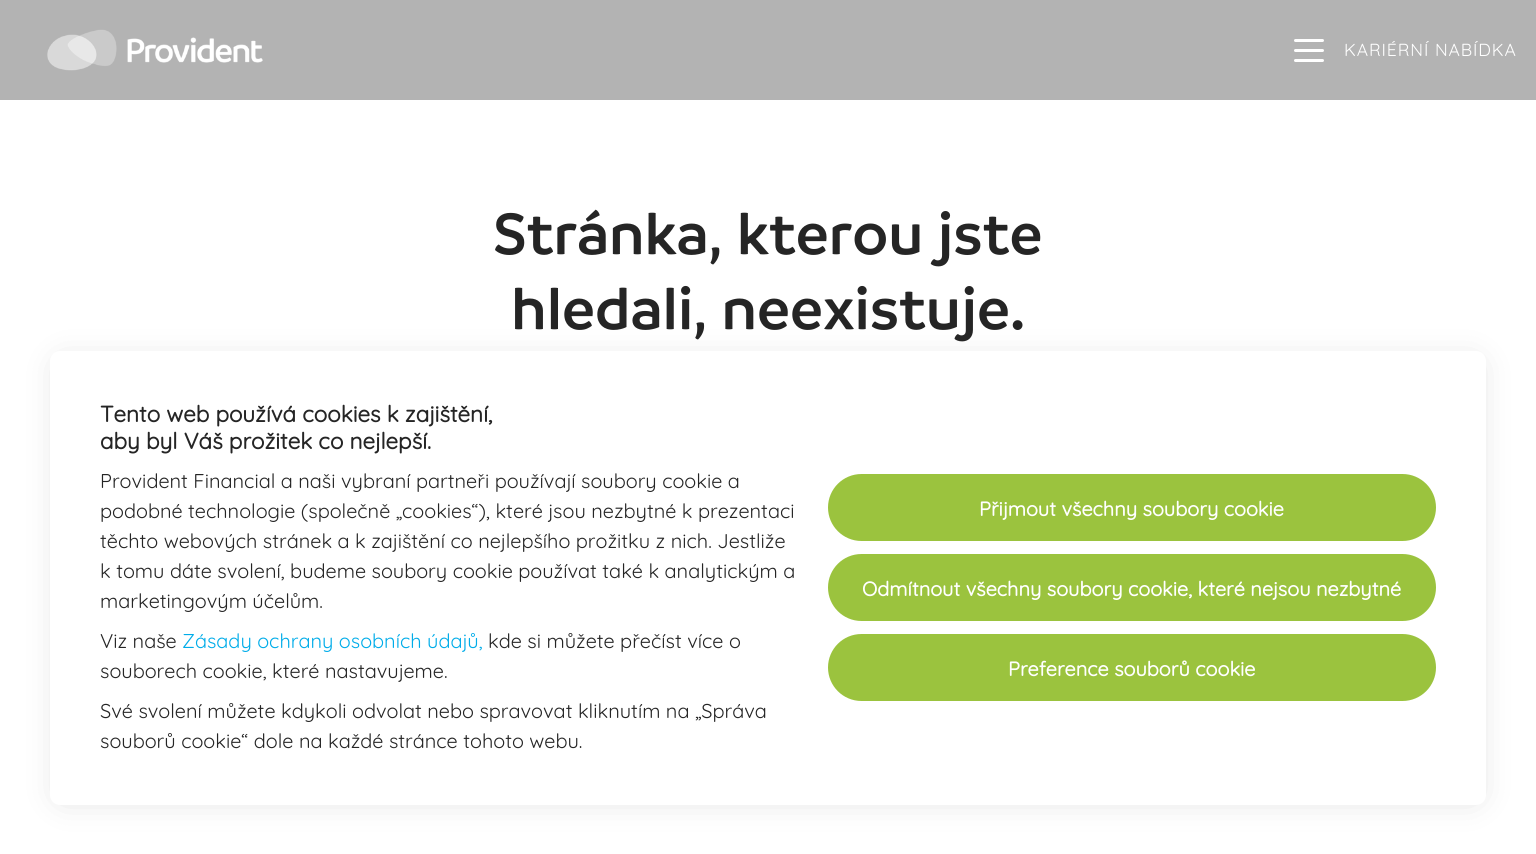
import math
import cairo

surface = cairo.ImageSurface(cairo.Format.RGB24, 1536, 854)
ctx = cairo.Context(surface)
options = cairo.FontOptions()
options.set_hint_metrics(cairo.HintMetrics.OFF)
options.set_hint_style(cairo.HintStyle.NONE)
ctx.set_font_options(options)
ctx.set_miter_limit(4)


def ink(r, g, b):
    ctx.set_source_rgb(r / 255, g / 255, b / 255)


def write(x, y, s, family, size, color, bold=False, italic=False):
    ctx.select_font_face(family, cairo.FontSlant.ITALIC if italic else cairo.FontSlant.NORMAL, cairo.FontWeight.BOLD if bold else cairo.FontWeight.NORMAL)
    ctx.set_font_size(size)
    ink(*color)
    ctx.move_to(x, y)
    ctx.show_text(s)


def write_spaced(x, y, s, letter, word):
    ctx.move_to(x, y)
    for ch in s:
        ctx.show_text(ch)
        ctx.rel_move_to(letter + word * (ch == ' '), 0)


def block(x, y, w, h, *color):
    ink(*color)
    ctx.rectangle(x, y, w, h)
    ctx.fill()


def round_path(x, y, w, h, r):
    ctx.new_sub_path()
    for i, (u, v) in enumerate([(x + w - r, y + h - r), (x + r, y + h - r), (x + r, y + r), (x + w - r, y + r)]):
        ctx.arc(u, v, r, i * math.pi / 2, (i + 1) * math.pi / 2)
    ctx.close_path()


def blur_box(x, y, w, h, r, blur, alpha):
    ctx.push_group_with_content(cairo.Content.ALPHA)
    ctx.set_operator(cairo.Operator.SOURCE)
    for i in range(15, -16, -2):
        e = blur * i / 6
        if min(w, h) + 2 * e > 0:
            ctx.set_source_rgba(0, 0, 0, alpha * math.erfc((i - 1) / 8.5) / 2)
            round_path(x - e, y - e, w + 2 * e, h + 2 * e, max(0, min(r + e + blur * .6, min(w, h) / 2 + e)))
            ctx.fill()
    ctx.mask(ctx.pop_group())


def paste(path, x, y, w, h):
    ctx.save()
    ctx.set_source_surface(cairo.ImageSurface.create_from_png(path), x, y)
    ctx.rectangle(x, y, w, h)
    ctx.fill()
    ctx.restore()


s1 = dict(family="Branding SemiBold", size=62.5, color=(37, 37, 37))
s2 = dict(family="Quicksand", size=22.5, color=(37, 37, 37), bold=True)
s3 = dict(family="Quicksand", size=20, color=(37, 37, 37))
s4 = dict(family="Quicksand", size=20, color=(0, 172, 233))
s5 = dict(family="Quicksand", size=20, color=(255, 255, 255), bold=True)

ink(255, 255, 255)
ctx.paint()
block(0, 0, 1536, 100, 179, 179, 179)
paste("pic1.png", 47, 29, 216, 42)
ink(255, 255, 255)
round_path(1294, 39, 30, 3, 1.5)
ctx.fill()
round_path(1294, 49, 30, 3, 1.5)
ctx.fill()
round_path(1294, 59, 30, 3, 1.5)
ctx.fill()
ctx.select_font_face("Quicksand")
ctx.set_font_size(17.5)
write_spaced(1344, 56, "KARIÉRNÍ NABÍDKA", 0.9, 0)
write(493, 254, "Stránka, kterou jste", **s1)
write(511, 329, "hledali, neexistuje.", **s1)
ink(0, 0, 0)
blur_box(63, 366, 1411, 429, 0, 17, 0.18)
ink(255, 255, 255)
round_path(50, 351, 1436, 454, 10)
ctx.fill()
write(100, 422, "Tento web používá cookies k zajištění,", **s2)
write(100, 449, "aby byl Váš prožitek co nejlepší.", **s2)
write(100, 488, "Provident Financial a naši vybraní partneři používají soubory cookie a", **s3)
write(100, 518, "podobné technologie (společně „cookies“), které jsou nezbytné k prezentaci", **s3)
write(100, 548, "těchto webových stránek a k zajištění co nejlepšího prožitku z nich. Jestliže", **s3)
write(100, 578, "k tomu dáte svolení, budeme soubory cookie používat také k analytickým a", **s3)
write(100, 608, "marketingovým účelům.", **s3)
write(100, 648, "Viz naše", **s3)
write(182, 648, "Zásady ochrany osobních údajů,", **s4)
write(488, 648, "kde si můžete přečíst více o", **s3)
write(100, 678, "souborech cookie, které nastavujeme.", **s3)
write(100, 718, "Své svolení můžete kdykoli odvolat nebo spravovat kliknutím na „Správa", **s3)
write(100, 748, "souborů cookie“ dole na každé stránce tohoto webu.", **s3)
ink(155, 195, 62)
round_path(828, 474, 608, 67, 33.5)
ctx.fill()
write(979, 516, "Přijmout všechny soubory cookie", **s5)
ink(155, 195, 62)
round_path(828, 554, 608, 67, 33.5)
ctx.fill()
write(862, 596, "Odmítnout všechny soubory cookie, které nejsou nezbytné", **s5)
ink(155, 195, 62)
round_path(828, 634, 608, 67, 33.5)
ctx.fill()
write(1008, 676, "Preference souborů cookie", **s5)
surface.write_to_png("screenshot.png")
